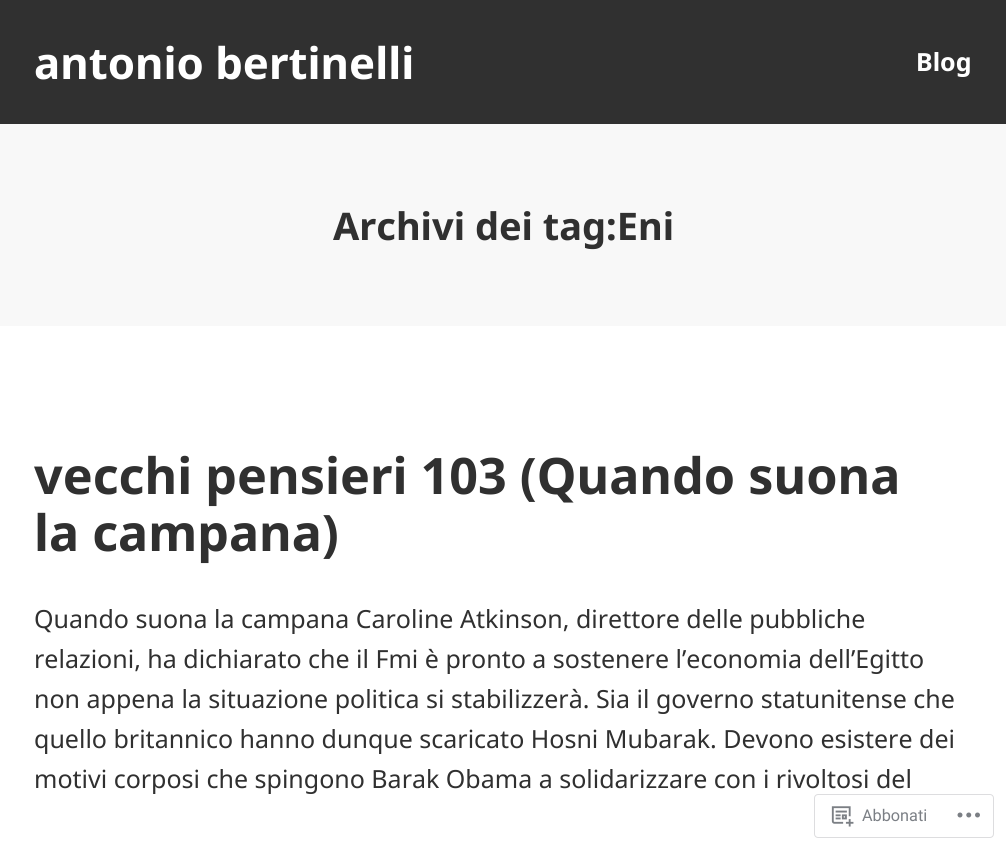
import math
import cairo

surface = cairo.ImageSurface(cairo.Format.RGB24, 1006, 850)
ctx = cairo.Context(surface)
options = cairo.FontOptions()
options.set_hint_metrics(cairo.HintMetrics.OFF)
options.set_hint_style(cairo.HintStyle.NONE)
ctx.set_font_options(options)
ctx.set_miter_limit(4)


def ink(r, g, b):
    ctx.set_source_rgb(r / 255, g / 255, b / 255)


def write(x, y, s, family, size, color, bold=False, italic=False):
    ctx.select_font_face(family, cairo.FontSlant.ITALIC if italic else cairo.FontSlant.NORMAL, cairo.FontWeight.BOLD if bold else cairo.FontWeight.NORMAL)
    ctx.set_font_size(size)
    ink(*color)
    ctx.move_to(x, y)
    ctx.show_text(s)


def block(x, y, w, h, *color):
    ink(*color)
    ctx.rectangle(x, y, w, h)
    ctx.fill()


def round_path(x, y, w, h, r):
    ctx.new_sub_path()
    for i, (u, v) in enumerate([(x + w - r, y + h - r), (x + r, y + h - r), (x + r, y + r), (x + w - r, y + r)]):
        ctx.arc(u, v, r, i * math.pi / 2, (i + 1) * math.pi / 2)
    ctx.close_path()


def paste(path, x, y, w, h):
    ctx.save()
    ctx.set_source_surface(cairo.ImageSurface.create_from_png(path), x, y)
    ctx.rectangle(x, y, w, h)
    ctx.fill()
    ctx.restore()


s1 = dict(family="Noto Sans", size=43.75, color=(255, 255, 255), bold=True)
s2 = dict(family="Noto Sans", size=25, color=(255, 255, 255), bold=True)
s3 = dict(family="Noto Sans", size=38, color=(48, 48, 48), bold=True)
s4 = dict(family="Noto Sans", size=50.25, color=(48, 48, 48), bold=True)
s5 = dict(family="Noto Sans", size=25, color=(48, 48, 48))
s6 = dict(family="Roboto", size=16.25, color=(123, 127, 133))

ink(255, 255, 255)
ctx.paint()
block(0, 0, 1006, 124, 48, 48, 48)
write(34, 79, "antonio bertinelli", **s1)
write(916, 71, "Blog", **s2)
block(0, 124, 1006, 202, 248, 248, 248)
write(333, 240, "Archivi dei tag:Eni", **s3)
write(34, 494, "vecchi pensieri 103 (Quando suona", **s4)
write(34, 551, "la campana)", **s4)
write(34, 628, "Quando suona la campana Caroline Atkinson, direttore delle pubbliche", **s5)
write(34, 668, "relazioni, ha dichiarato che il Fmi è pronto a sostenere l’economia dell’Egitto", **s5)
write(34, 708, "non appena la situazione politica si stabilizzerà. Sia il governo statunitense che", **s5)
write(34, 748, "quello britannico hanno dunque scaricato Hosni Mubarak. Devono esistere dei", **s5)
write(34, 788, "motivi corposi che spingono Barak Obama a solidarizzare con i rivoltosi del", **s5)
round_path(814.5, 794.5, 179, 43, 3.5)
ink(221, 221, 223)
ctx.set_line_width(1)
ctx.stroke()
paste("pic1.png", 831, 806, 23, 21)
write(862, 821, "Abbonati", **s6)
paste("pic2.png", 957, 812, 23, 6)
surface.write_to_png("screenshot.png")
